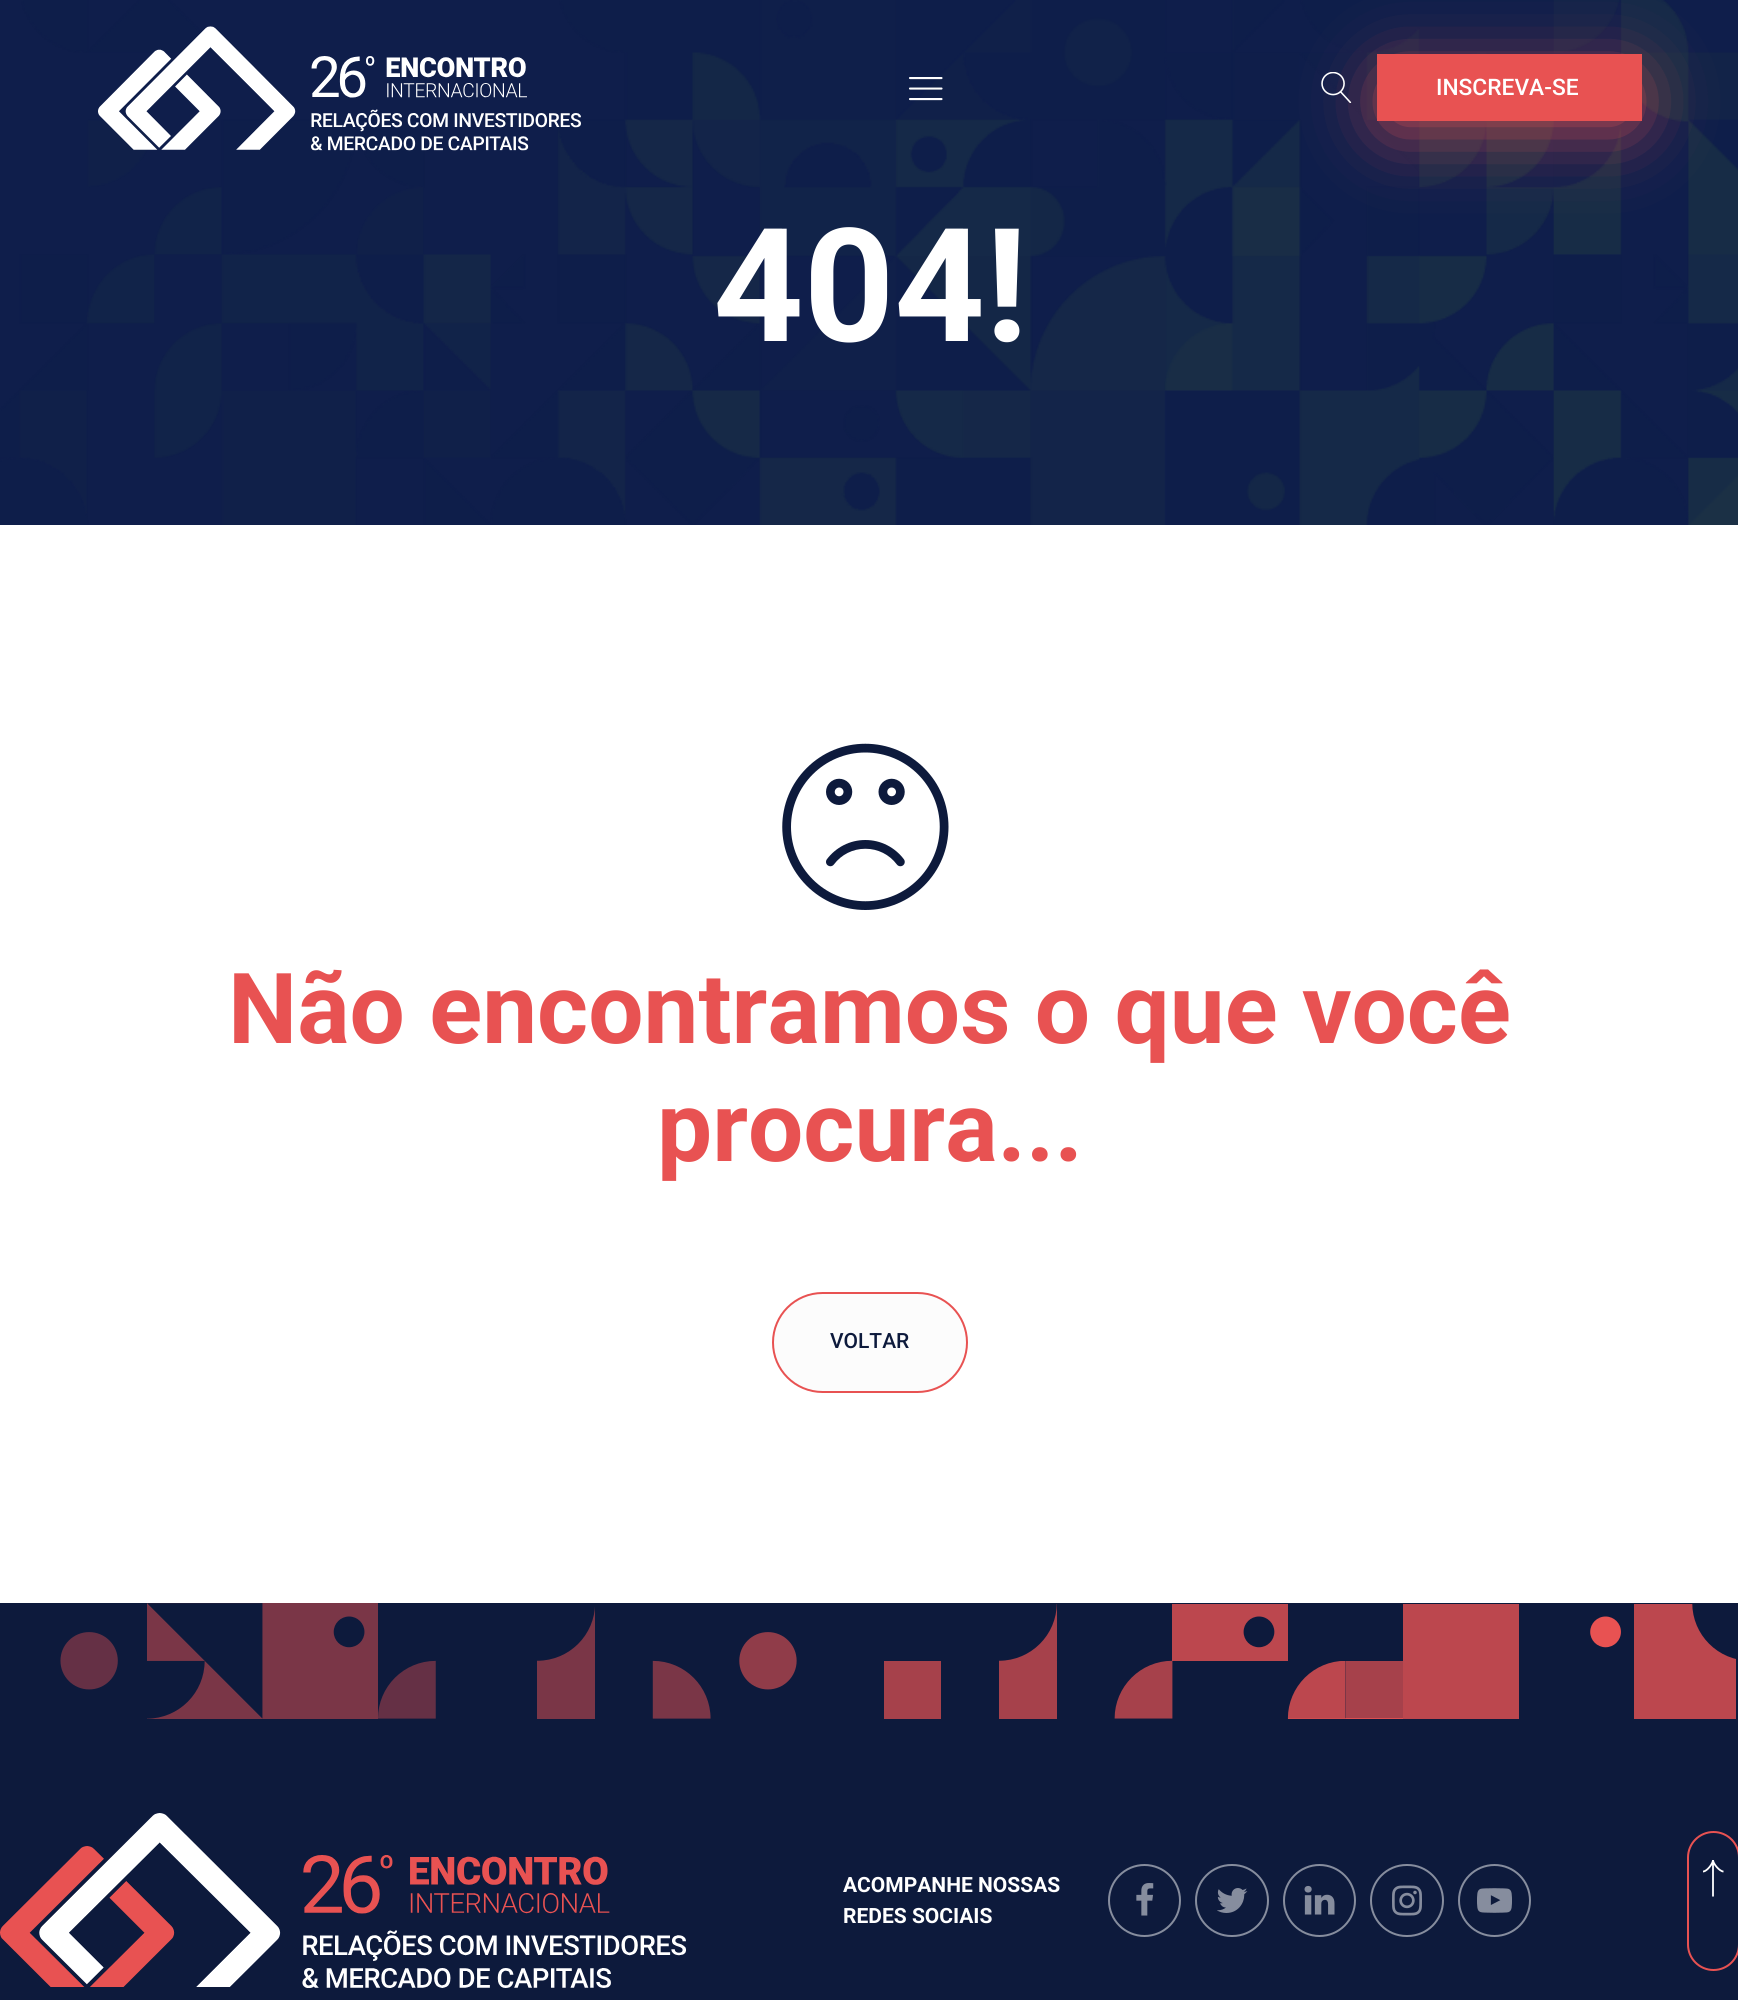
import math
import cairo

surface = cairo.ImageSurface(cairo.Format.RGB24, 1738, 2000)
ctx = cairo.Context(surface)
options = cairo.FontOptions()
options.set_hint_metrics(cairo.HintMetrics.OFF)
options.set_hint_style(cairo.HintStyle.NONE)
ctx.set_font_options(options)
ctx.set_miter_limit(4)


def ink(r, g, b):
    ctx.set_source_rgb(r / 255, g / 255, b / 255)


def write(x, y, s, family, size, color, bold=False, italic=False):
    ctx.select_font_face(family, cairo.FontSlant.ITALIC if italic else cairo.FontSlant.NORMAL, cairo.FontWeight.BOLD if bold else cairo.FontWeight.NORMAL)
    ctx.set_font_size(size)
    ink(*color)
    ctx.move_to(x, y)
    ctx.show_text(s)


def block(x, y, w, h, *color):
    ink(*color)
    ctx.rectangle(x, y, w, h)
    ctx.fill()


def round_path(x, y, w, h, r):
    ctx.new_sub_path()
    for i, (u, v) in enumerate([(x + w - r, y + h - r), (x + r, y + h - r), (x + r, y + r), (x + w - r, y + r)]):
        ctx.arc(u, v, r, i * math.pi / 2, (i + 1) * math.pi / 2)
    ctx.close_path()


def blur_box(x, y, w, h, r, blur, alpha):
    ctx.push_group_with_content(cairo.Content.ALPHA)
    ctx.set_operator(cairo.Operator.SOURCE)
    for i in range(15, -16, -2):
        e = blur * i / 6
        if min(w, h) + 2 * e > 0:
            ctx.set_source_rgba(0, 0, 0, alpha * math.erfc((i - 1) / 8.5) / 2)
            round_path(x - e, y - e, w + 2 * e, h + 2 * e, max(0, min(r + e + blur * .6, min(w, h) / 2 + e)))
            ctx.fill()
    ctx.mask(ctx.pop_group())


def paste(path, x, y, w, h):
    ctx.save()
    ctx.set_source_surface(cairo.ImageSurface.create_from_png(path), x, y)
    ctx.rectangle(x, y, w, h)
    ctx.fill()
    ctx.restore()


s1 = dict(family="Roboto Medium", size=22.75, color=(255, 255, 255))
s2 = dict(family="Roboto", size=158, color=(255, 255, 255), bold=True)
s3 = dict(family="Roboto", size=98, color=(232, 82, 82), bold=True)
s4 = dict(family="Roboto Medium", size=21, color=(13, 26, 60))
s5 = dict(family="Roboto", size=21, color=(255, 255, 255), bold=True)

ink(255, 255, 255)
ctx.paint()
paste("pic4.png", 0, 0, 1738, 525)
paste("pic1.png", 98, 26, 483, 125)
paste("pic2.png", 909, 77, 34, 24)
ink(232, 82, 82)
blur_box(1391, 82, 237, 39, 0, 37, 1)
paste("pic3.png", 1321, 72, 31, 31)
block(1377, 54, 265, 67, 232, 82, 82)
write(1436, 95, "INSCREVA-SE", **s1)
write(713, 341, "404!", **s2)
paste("pic5.png", 782, 743, 167, 167)
write(228, 1043, "Não encontramos o que você", **s3)
write(657, 1161, "procura...", **s3)
ink(252, 252, 252)
round_path(773, 1293, 194, 99, 49.5)
ctx.fill_preserve()
ink(232, 82, 82)
ctx.stroke()
write(830, 1348, "VOLTAR", **s4)
block(0, 1603, 1738, 397, 13, 26, 60)
paste("pic6.png", 60, 1603, 1676, 116)
paste("pic7.png", 0, 1813, 686, 175)
write(843, 1892, "ACOMPANHE NOSSAS", **s5)
write(843, 1923, "REDES SOCIAIS", **s5)
ctx.new_path()
ctx.arc(1144.5, 1900.5, 35.5, 0, 2 * math.pi)
ink(134, 141, 158)
ctx.stroke()
paste("pic8.png", 1136, 1883, 18, 33)
round_path(1196, 1865, 72, 71, 35.5)
ctx.stroke()
paste("pic9.png", 1217, 1888, 31, 25)
ctx.arc(1319.5, 1900.5, 35.5, 0, 2 * math.pi)
ctx.stroke()
paste("pic10.png", 1304, 1885, 31, 30)
round_path(1371, 1865, 72, 71, 35.5)
ctx.stroke()
paste("pic11.png", 1392, 1885, 30, 31)
ctx.arc(1494.5, 1900.5, 35.5, 0, 2 * math.pi)
ctx.stroke()
paste("pic12.png", 1477, 1888, 35, 25)
round_path(1688, 1832, 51, 138, 25.5)
ink(232, 82, 82)
ctx.stroke()
ctx.new_path()
ctx.move_to(1713, 1860)
ctx.line_to(1713, 1896.5)
ctx.move_to(1713, 1860)
ctx.curve_to(1713, 1863.5, 1719.5, 1871.5, 1723.5, 1871.5)
ctx.move_to(1713, 1860)
ctx.curve_to(1713, 1863.5, 1707, 1871.5, 1703, 1871.5)
ink(255, 255, 255)
ctx.set_line_width(1.8)
ctx.stroke()
surface.write_to_png("screenshot.png")
